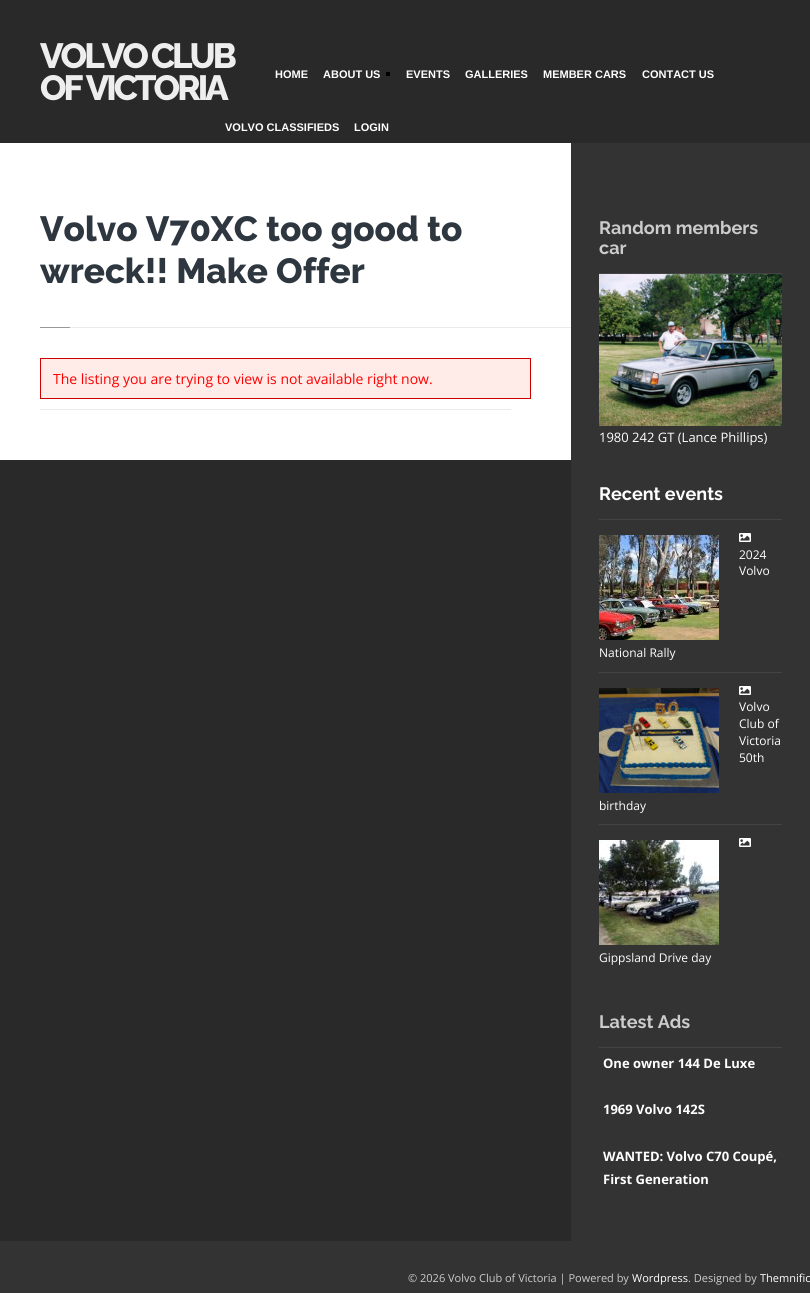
import math
import cairo

surface = cairo.ImageSurface(cairo.Format.RGB24, 810, 1293)
ctx = cairo.Context(surface)
options = cairo.FontOptions()
options.set_hint_metrics(cairo.HintMetrics.OFF)
options.set_hint_style(cairo.HintStyle.NONE)
ctx.set_font_options(options)
ctx.set_miter_limit(4)


def ink(r, g, b):
    ctx.set_source_rgb(r / 255, g / 255, b / 255)


def write(x, y, s, family, size, color, bold=False, italic=False):
    ctx.select_font_face(family, cairo.FontSlant.ITALIC if italic else cairo.FontSlant.NORMAL, cairo.FontWeight.BOLD if bold else cairo.FontWeight.NORMAL)
    ctx.set_font_size(size)
    ink(*color)
    ctx.move_to(x, y)
    ctx.show_text(s)


def write_spaced(x, y, s, letter, word):
    ctx.move_to(x, y)
    for ch in s:
        ctx.show_text(ch)
        ctx.rel_move_to(letter + word * (ch == ' '), 0)


def block(x, y, w, h, *color):
    ink(*color)
    ctx.rectangle(x, y, w, h)
    ctx.fill()


def paste(path, x, y, w, h):
    ctx.save()
    ctx.set_source_surface(cairo.ImageSurface.create_from_png(path), x, y)
    ctx.rectangle(x, y, w, h)
    ctx.fill()
    ctx.restore()


s1 = dict(family="Liberation Sans", size=11, color=(255, 255, 255), bold=True)
s2 = dict(family="Raleway ExtraBold", size=35, color=(46, 55, 63))
s3 = dict(family="Open Sans", size=14, color=(255, 0, 0))
s4 = dict(family="Raleway", size=18, color=(204, 204, 204), bold=True)
s5 = dict(family="Open Sans", size=13, color=(255, 255, 255))
s6 = dict(family="Raleway", size=18, color=(255, 255, 255), bold=True)
s7 = dict(family="Open Sans", size=12, color=(255, 255, 255))
s8 = dict(family="Open Sans", size=13, color=(255, 255, 255), bold=True)
s9 = dict(family="Open Sans", size=11, color=(204, 204, 204))
s10 = dict(family="Open Sans", size=11, color=(255, 255, 255))

ink(41, 41, 41)
ctx.paint()
ctx.select_font_face("Raleway ExtraBold")
ctx.set_font_size(35)
ink(238, 238, 238)
write_spaced(40, 68, "VOLVO CLUB", -3, 0)
write_spaced(40, 100, "OF VICTORIA", -3, 0)
write(275, 78, "HOME", **s1)
write(323, 78, "ABOUT US", **s1)
block(386, 72, 4, 4, 0, 0, 0)
write(406, 78, "EVENTS", **s1)
write(465, 78, "GALLERIES", **s1)
write(543, 78, "MEMBER CARS", **s1)
write(642, 78, "CONTACT US", **s1)
write(225, 131, "VOLVO CLASSIFIEDS", **s1)
write(354, 131, "LOGIN", **s1)
block(0, 143, 571, 317, 255, 255, 255)
write(40, 241, "Volvo V70XC too good to", **s2)
write(40, 283, "wreck!! Make Offer", **s2)
block(70, 327, 501, 1, 235, 235, 235)
block(40, 327, 30, 1, 153, 153, 153)
ink(255, 235, 232)
ctx.rectangle(40.5, 358.5, 490, 40)
ctx.fill_preserve()
ink(204, 0, 0)
ctx.set_line_width(1)
ctx.stroke()
write(53, 384, "The listing you are trying to view is not available right now.", **s3)
block(40, 409, 471, 1, 235, 235, 235)
block(571, 143, 239, 1098, 51, 51, 51)
block(599, 273, 183, 1, 68, 68, 68)
write(599, 234, "Random members", **s4)
write(599, 254, "car", **s4)
paste("pic1.png", 599, 274, 183, 152)
write(599, 442, "1980 242 GT (Lance Phillips)", **s5)
block(599, 519, 183, 1, 68, 68, 68)
write(599, 500, "Recent events", **s6)
block(599, 672, 183, 1, 68, 68, 68)
paste("pic2.png", 599, 535, 120, 105)
paste("pic3.png", 739, 533, 12, 9)
write(739, 559, "2024", **s7)
write(739, 575, "Volvo", **s7)
write(599, 657, "National Rally", **s7)
block(599, 824, 183, 1, 68, 68, 68)
paste("pic4.png", 599, 688, 120, 105)
paste("pic3.png", 739, 686, 12, 9)
write(739, 711, "Volvo", **s7)
write(739, 728, "Club of", **s7)
write(739, 745, "Victoria", **s7)
write(739, 762, "50th", **s7)
write(599, 810, "birthday", **s7)
paste("pic5.png", 599, 840, 120, 105)
paste("pic3.png", 739, 838, 12, 9)
write(599, 962, "Gippsland Drive day", **s7)
block(599, 1047, 183, 1, 68, 68, 68)
write(599, 1028, "Latest Ads", **s4)
write(603, 1068, "One owner 144 De Luxe", **s8)
write(603, 1114, "1969 Volvo 142S", **s8)
write(603, 1161, "WANTED: Volvo C70 Coupé,", **s8)
write(603, 1184, "First Generation", **s8)
block(0, 1241, 810, 52, 51, 51, 51)
write(408, 1282, "© 2026 Volvo Club of Victoria | Powered by", **s9)
write(632, 1282, "Wordpress", **s10)
write(688, 1282, ". Designed by", **s9)
write(760, 1282, "Themnific", **s10)
surface.write_to_png("screenshot.png")
